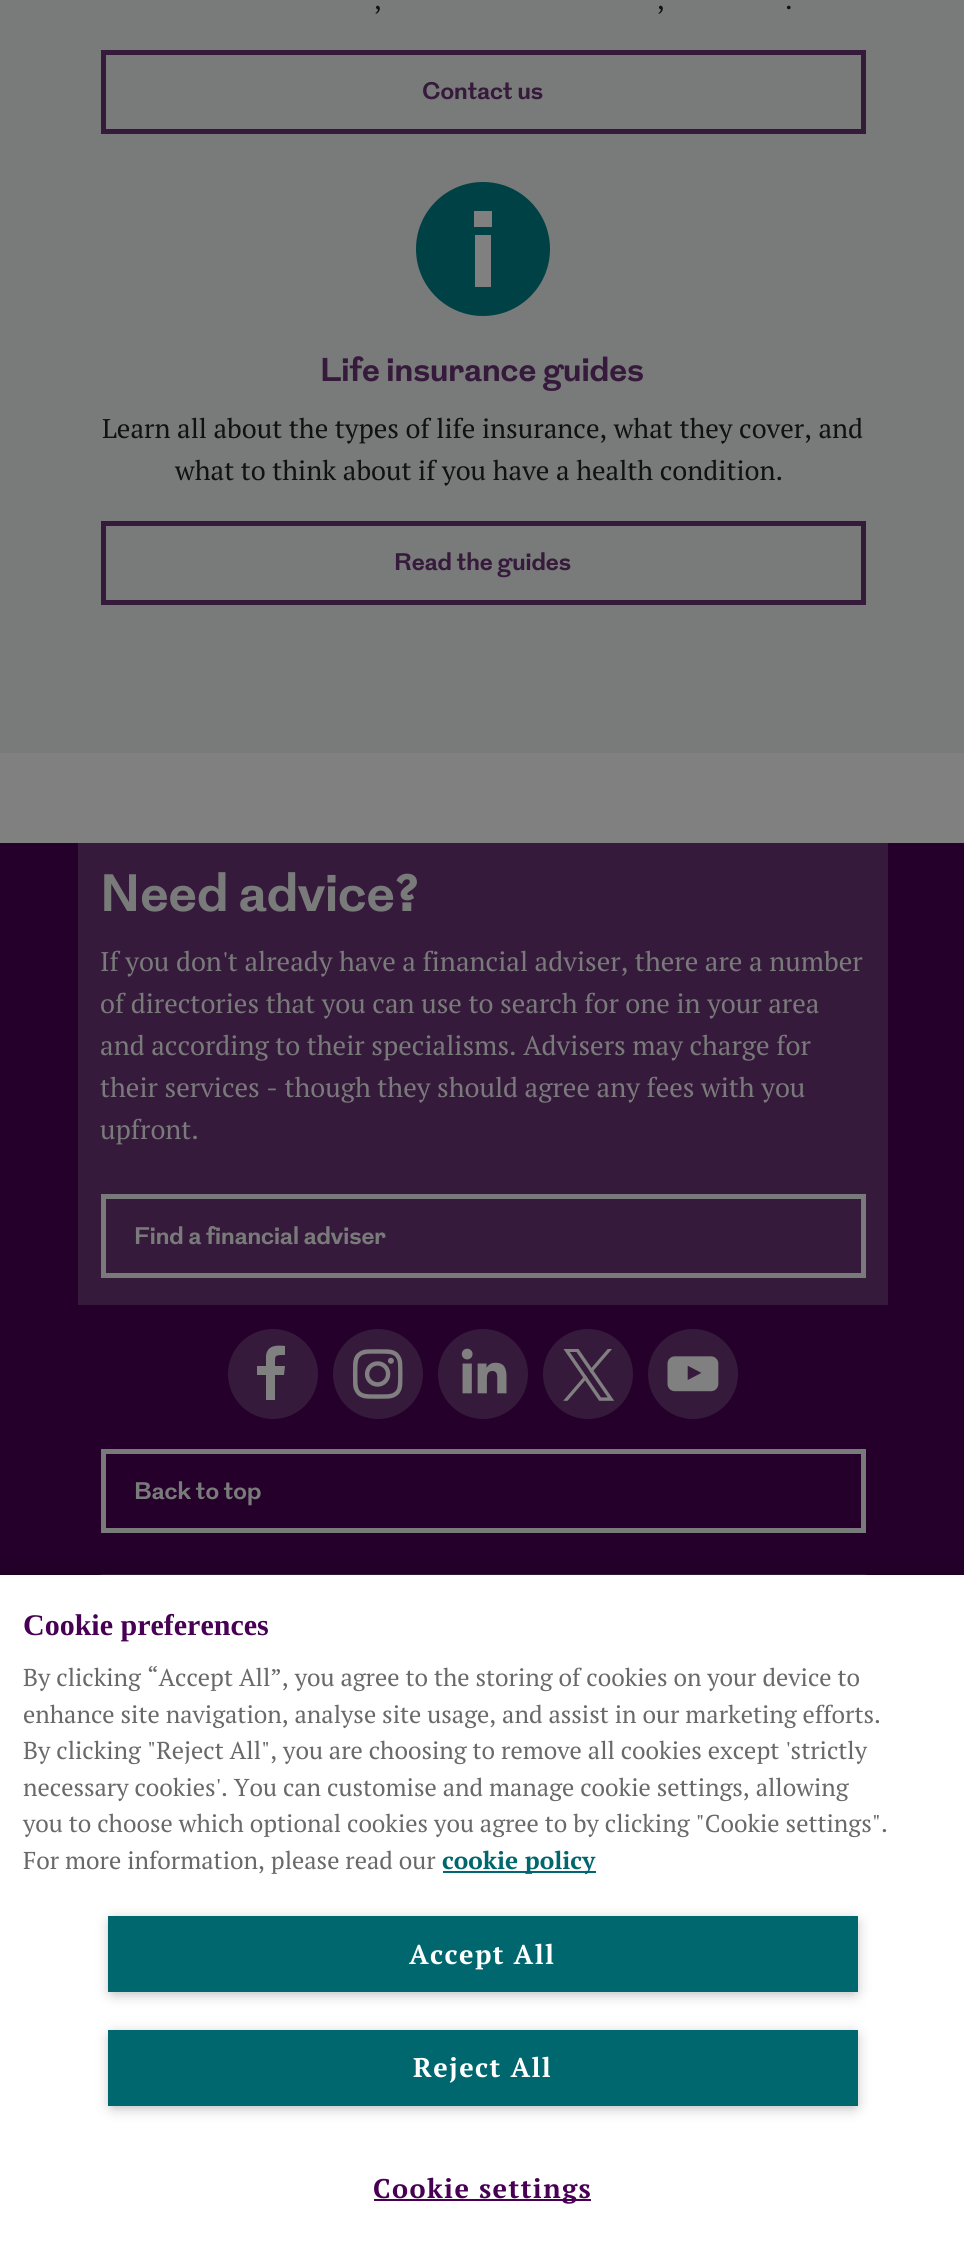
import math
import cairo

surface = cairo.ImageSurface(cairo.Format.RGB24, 964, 2263)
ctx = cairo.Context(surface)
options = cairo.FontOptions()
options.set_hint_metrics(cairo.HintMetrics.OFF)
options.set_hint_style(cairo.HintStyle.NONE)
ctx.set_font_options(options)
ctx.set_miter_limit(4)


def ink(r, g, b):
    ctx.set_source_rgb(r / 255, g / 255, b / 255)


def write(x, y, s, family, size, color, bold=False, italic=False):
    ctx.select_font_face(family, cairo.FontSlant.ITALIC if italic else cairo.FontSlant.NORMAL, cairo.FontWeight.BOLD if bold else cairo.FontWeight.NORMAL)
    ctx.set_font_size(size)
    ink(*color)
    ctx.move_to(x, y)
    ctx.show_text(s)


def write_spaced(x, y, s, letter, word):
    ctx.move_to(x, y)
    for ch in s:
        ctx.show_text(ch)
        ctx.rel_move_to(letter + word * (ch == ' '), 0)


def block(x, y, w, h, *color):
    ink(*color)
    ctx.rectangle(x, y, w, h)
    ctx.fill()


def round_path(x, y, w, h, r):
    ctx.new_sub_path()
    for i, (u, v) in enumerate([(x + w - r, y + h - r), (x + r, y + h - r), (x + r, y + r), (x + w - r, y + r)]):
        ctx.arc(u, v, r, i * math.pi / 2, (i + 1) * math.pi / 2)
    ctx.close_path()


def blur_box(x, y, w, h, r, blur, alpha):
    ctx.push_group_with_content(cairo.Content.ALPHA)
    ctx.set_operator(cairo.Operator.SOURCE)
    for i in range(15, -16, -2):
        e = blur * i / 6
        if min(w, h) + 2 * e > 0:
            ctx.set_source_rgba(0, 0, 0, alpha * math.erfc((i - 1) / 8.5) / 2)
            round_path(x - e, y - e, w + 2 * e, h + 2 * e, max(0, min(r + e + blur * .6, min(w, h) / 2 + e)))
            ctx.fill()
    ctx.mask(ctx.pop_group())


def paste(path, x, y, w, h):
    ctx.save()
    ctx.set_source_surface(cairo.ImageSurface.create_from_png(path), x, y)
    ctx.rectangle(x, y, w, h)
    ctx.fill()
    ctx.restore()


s1 = dict(family="PT Serif", size=27, color=(17, 17, 17))
s2 = dict(family="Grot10", size=24, color=(54, 26, 59), bold=True)
s3 = dict(family="Grot10", size=33, color=(54, 26, 59), bold=True)
s4 = dict(family="Grot10", size=52.5, color=(121, 122, 122), bold=True)
s5 = dict(family="PT Serif", size=27, color=(121, 122, 122))
s6 = dict(family="Grot10", size=24, color=(121, 122, 122), bold=True)
s7 = dict(family="Liberation Serif", size=30, color=(71, 0, 84), bold=True)
s8 = dict(family="PT Serif", size=24.4, color=(105, 105, 105))
s9 = dict(family="PT Serif", size=24.4, color=(0, 103, 110), bold=True)

ink(128, 128, 128)
ctx.paint()
block(0, 0, 964, 753, 121, 122, 122)
write(374, 9, ",", **s1)
write(657, 9, ",", **s1)
write(785, 9, ".", **s1)
ctx.rectangle(103.5, 52.5, 760, 79)
ink(54, 26, 59)
ctx.set_line_width(5)
ctx.stroke()
write(422, 99, "Contact us", **s2)
ink(128, 128, 128)
ctx.new_path()
ctx.arc(483, 249, 65, 0, 2 * math.pi)
ctx.fill()
ink(0, 65, 69)
ctx.new_path()
ctx.move_to(483, 182)
ctx.curve_to(446, 182, 416, 212, 416, 249)
ctx.curve_to(416, 286, 446, 316, 483, 316)
ctx.curve_to(520, 316, 550, 286, 550, 249)
ctx.curve_to(550, 212, 520, 182, 483, 182)
ctx.close_path()
ctx.move_to(491, 287)
ctx.line_to(475, 287)
ctx.line_to(475, 235)
ctx.line_to(491, 235)
ctx.close_path()
ctx.move_to(492, 227)
ctx.line_to(474, 227)
ctx.line_to(474, 211)
ctx.line_to(492, 211)
ctx.close_path()
ctx.fill()
write(320, 381, "Life insurance guides", **s3)
write(102, 438, "Learn all about the types of life insurance, what they cover, and", **s1)
write(175, 480, "what to think about if you have a health condition.", **s1)
ctx.rectangle(103.5, 523.5, 760, 79)
ink(54, 26, 59)
ctx.stroke()
write(394, 570, "Read the guides", **s2)
block(0, 843, 964, 732, 36, 0, 42)
block(78, 843, 810, 462, 54, 26, 59)
write(100, 911, "Need advice?", **s4)
write(100, 971, "If you don't already have a financial adviser, there are a number", **s5)
write(100, 1013, "of directories that you can use to search for one in your area", **s5)
write(100, 1055, "and according to their specialisms. Advisers may charge for", **s5)
write(100, 1097, "their services - though they should agree any fees with you", **s5)
write(100, 1139, "upfront.", **s5)
ctx.rectangle(103.5, 1196.5, 760, 79)
ctx.stroke()
write(134, 1244, "Find a financial adviser", **s6)
ink(54, 26, 59)
ctx.new_path()
ctx.arc(273, 1374, 45, 0, 2 * math.pi)
ctx.fill()
ink(128, 128, 128)
ctx.new_path()
ctx.move_to(285, 1355)
ctx.curve_to(274, 1355, 275, 1355, 275, 1366)
ctx.line_to(285, 1366)
ctx.line_to(284, 1375)
ctx.line_to(275, 1375)
ctx.line_to(275, 1400)
ctx.line_to(266, 1400)
ctx.line_to(266, 1375)
ctx.line_to(257, 1375)
ctx.line_to(257, 1366)
ctx.line_to(266, 1366)
ctx.line_to(266, 1356)
ctx.curve_to(267, 1345, 277, 1345, 285, 1346)
ctx.close_path()
ctx.fill()
ink(54, 26, 59)
ctx.arc(378, 1374, 45, 0, 2 * math.pi)
ctx.fill()
paste("pic1.png", 352, 1349, 51, 50)
ctx.arc(483, 1374, 45, 0, 2 * math.pi)
ctx.fill()
paste("pic2.png", 461, 1348, 46, 46)
ctx.arc(588, 1374, 45, 0, 2 * math.pi)
ctx.fill()
paste("pic3.png", 563, 1349, 51, 52)
ctx.arc(693, 1374, 45, 0, 2 * math.pi)
ctx.fill()
paste("pic4.png", 667, 1356, 52, 36)
ctx.rectangle(103.5, 1451.5, 760, 79)
ink(121, 122, 122)
ctx.stroke()
write(134, 1499, "Back to top", **s6)
block(101, 1574, 765, 1, 54, 26, 59)
ink(0, 0, 0)
blur_box(0, 1575, 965, 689, 0, 13.5, 0.2)
block(0, 1575, 964, 688, 255, 255, 255)
write(23, 1635, "Cookie preferences", **s7)
write(23, 1686, "By clicking “Accept All”, you agree to the storing of cookies on your device to", **s8)
write(23, 1723, "enhance site navigation, analyse site usage, and assist in our marketing efforts.", **s8)
write(23, 1759, "By clicking \"Reject All\", you are choosing to remove all cookies except 'strictly", **s8)
write(23, 1796, "necessary cookies'. You can customise and manage cookie settings, allowing", **s8)
write(23, 1832, "you to choose which optional cookies you agree to by clicking \"Cookie settings\".", **s8)
write(23, 1869, "For more information, please read our", **s8)
block(443, 1871, 153, 2, 0, 103, 110)
write(442, 1869, "cookie policy", **s9)
ink(153, 153, 153)
blur_box(113, 1923, 741, 68, 0, 7.5, 1)
block(108, 1916, 750, 76, 0, 103, 110)
ctx.set_font_size(27)
ink(255, 255, 255)
write_spaced(409, 1964, "Accept All", 1.4, 0)
ink(153, 153, 153)
blur_box(113, 2037, 741, 68, 0, 7.5, 1)
block(108, 2030, 750, 76, 0, 103, 110)
ink(255, 255, 255)
write_spaced(413, 2077, "Reject All", 1.4, 0)
block(374, 2199, 217, 2, 71, 0, 84)
write_spaced(373, 2198, "Cookie settings", 1.4, 0)
surface.write_to_png("screenshot.png")
